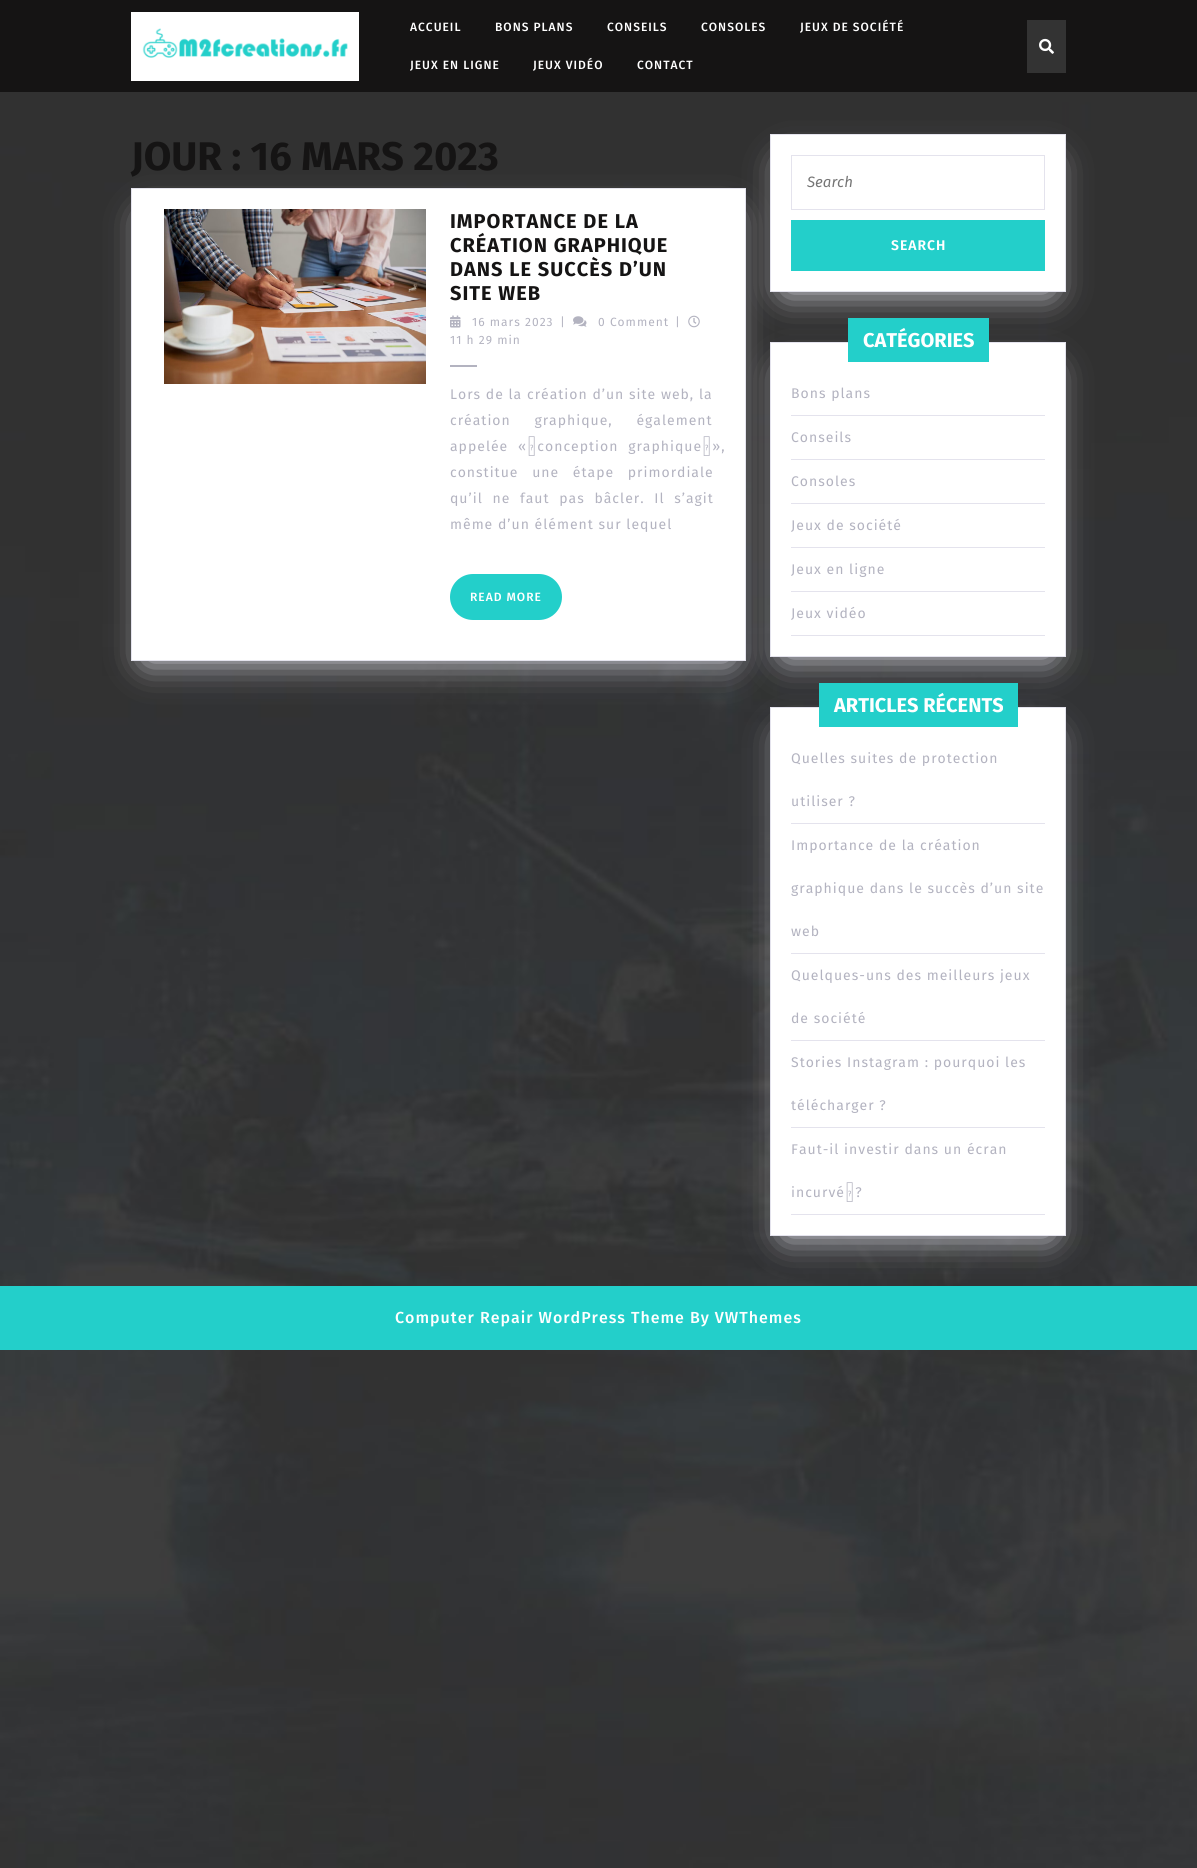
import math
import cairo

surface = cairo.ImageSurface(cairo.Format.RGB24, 1197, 1868)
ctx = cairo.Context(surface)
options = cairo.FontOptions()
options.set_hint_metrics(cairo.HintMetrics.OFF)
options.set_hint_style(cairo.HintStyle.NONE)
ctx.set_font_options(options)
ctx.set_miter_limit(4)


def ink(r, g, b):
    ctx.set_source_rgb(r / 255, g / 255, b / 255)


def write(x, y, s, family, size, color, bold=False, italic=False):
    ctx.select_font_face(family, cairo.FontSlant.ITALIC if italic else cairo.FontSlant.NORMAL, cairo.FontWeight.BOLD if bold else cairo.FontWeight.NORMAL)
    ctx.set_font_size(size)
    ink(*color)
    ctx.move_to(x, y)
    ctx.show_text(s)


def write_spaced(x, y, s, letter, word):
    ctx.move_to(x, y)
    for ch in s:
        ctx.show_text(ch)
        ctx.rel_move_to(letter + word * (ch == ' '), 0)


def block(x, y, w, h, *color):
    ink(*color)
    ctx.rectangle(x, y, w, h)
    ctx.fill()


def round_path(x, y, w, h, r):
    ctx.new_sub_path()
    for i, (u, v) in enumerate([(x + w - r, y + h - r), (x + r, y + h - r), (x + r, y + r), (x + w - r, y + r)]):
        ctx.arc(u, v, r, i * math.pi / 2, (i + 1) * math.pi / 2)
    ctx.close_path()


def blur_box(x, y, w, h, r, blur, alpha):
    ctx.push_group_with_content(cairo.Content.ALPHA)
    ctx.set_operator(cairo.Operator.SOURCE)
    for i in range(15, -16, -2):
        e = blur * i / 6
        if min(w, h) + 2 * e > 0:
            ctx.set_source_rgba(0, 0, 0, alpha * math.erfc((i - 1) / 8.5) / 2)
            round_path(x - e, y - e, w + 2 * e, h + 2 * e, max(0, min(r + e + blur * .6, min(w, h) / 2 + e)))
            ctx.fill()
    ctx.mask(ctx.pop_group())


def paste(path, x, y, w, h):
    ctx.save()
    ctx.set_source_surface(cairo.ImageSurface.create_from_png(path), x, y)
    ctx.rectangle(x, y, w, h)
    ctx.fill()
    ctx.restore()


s1 = dict(family="Fira Sans", size=40, color=(21, 20, 20), bold=True)
s2 = dict(family="Fira Sans", size=15, color=(117, 117, 117), italic=True)
s3 = dict(family="Fira Sans", size=20, color=(255, 255, 255), bold=True)

ink(255, 255, 255)
ctx.paint()
paste("pic1.png", 0, 92, 1197, 1776)
block(0, 0, 1197, 92, 21, 20, 20)
block(131, 12, 228, 69, 255, 255, 255)
paste("pic2.png", 142, 28, 206, 30)
ctx.select_font_face("Fira Sans Medium")
ctx.set_font_size(12)
write_spaced(410, 31, "ACCUEIL", 1, 0)
write_spaced(495, 31, "BONS PLANS", 1, 0)
write_spaced(607, 31, "CONSEILS", 1, 0)
write_spaced(701, 31, "CONSOLES", 1, 0)
write_spaced(800, 31, "JEUX DE SOCIÉTÉ", 1, 0)
write_spaced(410, 69, "JEUX EN LIGNE", 1, 0)
write_spaced(533, 69, "JEUX VIDÉO", 1, 0)
write_spaced(637, 69, "CONTACT", 1, 0)
block(1027, 20, 39, 53, 51, 51, 51)
paste("pic3.png", 1039, 38, 15, 16)
ink(228, 227, 237)
blur_box(146, 218, 585, 443, 0, 17.5, 1)
write(131, 170, "JOUR : 16 MARS 2023", **s1)
ink(255, 255, 255)
ctx.rectangle(131.5, 188.5, 614, 472)
ctx.fill_preserve()
ink(228, 227, 237)
ctx.set_line_width(1)
ctx.stroke()
paste("pic4.png", 164, 209, 262, 175)
ctx.set_font_size(20)
ink(21, 20, 20)
write_spaced(450, 228, "IMPORTANCE DE LA", 1, 0)
write_spaced(450, 252, "CRÉATION GRAPHIQUE", 1, 0)
write_spaced(450, 276, "DANS LE SUCCÈS D’UN", 1, 0)
write_spaced(450, 300, "SITE WEB", 1, 0)
paste("pic5.png", 450, 315, 11, 13)
ctx.select_font_face("Fira Sans")
ctx.set_font_size(12)
ink(179, 179, 192)
write_spaced(472, 326, "16 mars 2023", 1, 0)
write_spaced(560, 326, "|", 1, 0)
paste("pic6.png", 573, 316, 14, 11)
write_spaced(598, 326, "0 Comment", 1, 0)
write_spaced(675, 326, "|", 1, 0)
paste("pic7.png", 688, 315, 12, 13)
write_spaced(450, 344, "11 h 29 min", 1, 0)
block(450, 365, 27, 2, 179, 179, 192)
ctx.set_font_size(14)
write_spaced(450, 399, "Lors de la création d’un site web, la", 1, 0)
write_spaced(450, 425, "création graphique, également", 1, 19)
write_spaced(450, 451, "appelée « conception graphique »,", 1, 5)
write_spaced(450, 477, "constitue une étape primordiale", 1, 9)
write_spaced(450, 503, "qu’il ne faut pas bâcler. Il s’agit", 1, 5)
write_spaced(450, 529, "même d’un élément sur lequel", 1, 0)
ink(35, 207, 202)
round_path(450, 574, 112, 46, 23)
ctx.fill()
ctx.select_font_face("Fira Sans Medium")
ctx.set_font_size(12)
ink(255, 255, 255)
write_spaced(470, 601, "READ MORE", 1, 0)
ink(228, 227, 237)
blur_box(785, 164, 266, 128, 0, 17.5, 1)
ink(255, 255, 255)
ctx.rectangle(770.5, 134.5, 295, 157)
ctx.fill_preserve()
ink(228, 227, 237)
ctx.stroke()
ctx.rectangle(791.5, 155.5, 253, 54)
ctx.stroke()
write(807, 187, "Search", **s2)
block(791, 220, 254, 51, 35, 207, 202)
ctx.select_font_face("Fira Sans SemiBold")
ctx.set_font_size(14)
ink(255, 255, 255)
write_spaced(891, 250, "SEARCH", 1, 0)
ink(228, 227, 237)
blur_box(785, 372, 266, 285, 0, 17.5, 1)
ink(255, 255, 255)
ctx.rectangle(770.5, 342.5, 295, 314)
ctx.fill_preserve()
ink(228, 227, 237)
ctx.stroke()
block(848, 318, 141, 44, 35, 207, 202)
write(863, 347, "CATÉGORIES", **s3)
block(791, 415, 254, 1, 228, 227, 237)
ctx.select_font_face("Fira Sans")
ctx.set_font_size(14)
ink(179, 179, 192)
write_spaced(791, 398, "Bons plans", 1, 0)
block(791, 459, 254, 1, 228, 227, 237)
ink(179, 179, 192)
write_spaced(791, 442, "Conseils", 1, 0)
block(791, 503, 254, 1, 228, 227, 237)
ink(179, 179, 192)
write_spaced(791, 486, "Consoles", 1, 0)
block(791, 547, 254, 1, 228, 227, 237)
ink(179, 179, 192)
write_spaced(791, 530, "Jeux de société", 1, 0)
block(791, 591, 254, 1, 228, 227, 237)
ink(179, 179, 192)
write_spaced(791, 574, "Jeux en ligne", 1, 0)
block(791, 635, 254, 1, 228, 227, 237)
ink(179, 179, 192)
write_spaced(791, 618, "Jeux vidéo", 1, 0)
block(0, 1286, 1197, 64, 35, 207, 202)
ink(228, 227, 237)
blur_box(785, 737, 266, 499, 0, 17.5, 1)
ink(255, 255, 255)
ctx.rectangle(770.5, 707.5, 295, 528)
ctx.fill_preserve()
ink(228, 227, 237)
ctx.stroke()
block(819, 683, 199, 44, 35, 207, 202)
write(834, 712, "ARTICLES RÉCENTS", **s3)
block(791, 823, 254, 1, 228, 227, 237)
ctx.select_font_face("Fira Sans")
ctx.set_font_size(14)
ink(179, 179, 192)
write_spaced(791, 763, "Quelles suites de protection", 1, 0)
write_spaced(791, 806, "utiliser ?", 1, 0)
block(791, 953, 254, 1, 228, 227, 237)
ink(179, 179, 192)
write_spaced(791, 850, "Importance de la création", 1, 0)
write_spaced(791, 893, "graphique dans le succès d’un site", 1, 0)
write_spaced(791, 936, "web", 1, 0)
block(791, 1040, 254, 1, 228, 227, 237)
ink(179, 179, 192)
write_spaced(791, 980, "Quelques-uns des meilleurs jeux", 1, 0)
write_spaced(791, 1023, "de société", 1, 0)
block(791, 1127, 254, 1, 228, 227, 237)
ink(179, 179, 192)
write_spaced(791, 1067, "Stories Instagram : pourquoi les", 1, 0)
write_spaced(791, 1110, "télécharger ?", 1, 0)
block(791, 1214, 254, 1, 228, 227, 237)
ink(179, 179, 192)
write_spaced(791, 1154, "Faut-il investir dans un écran", 1, 0)
write_spaced(791, 1197, "incurvé ?", 1, 0)
ctx.select_font_face("Fira Sans Medium")
ctx.set_font_size(16)
ink(255, 255, 255)
write_spaced(395, 1323, "Computer Repair WordPress Theme By VWThemes", 1, 0)
surface.write_to_png("screenshot.png")
